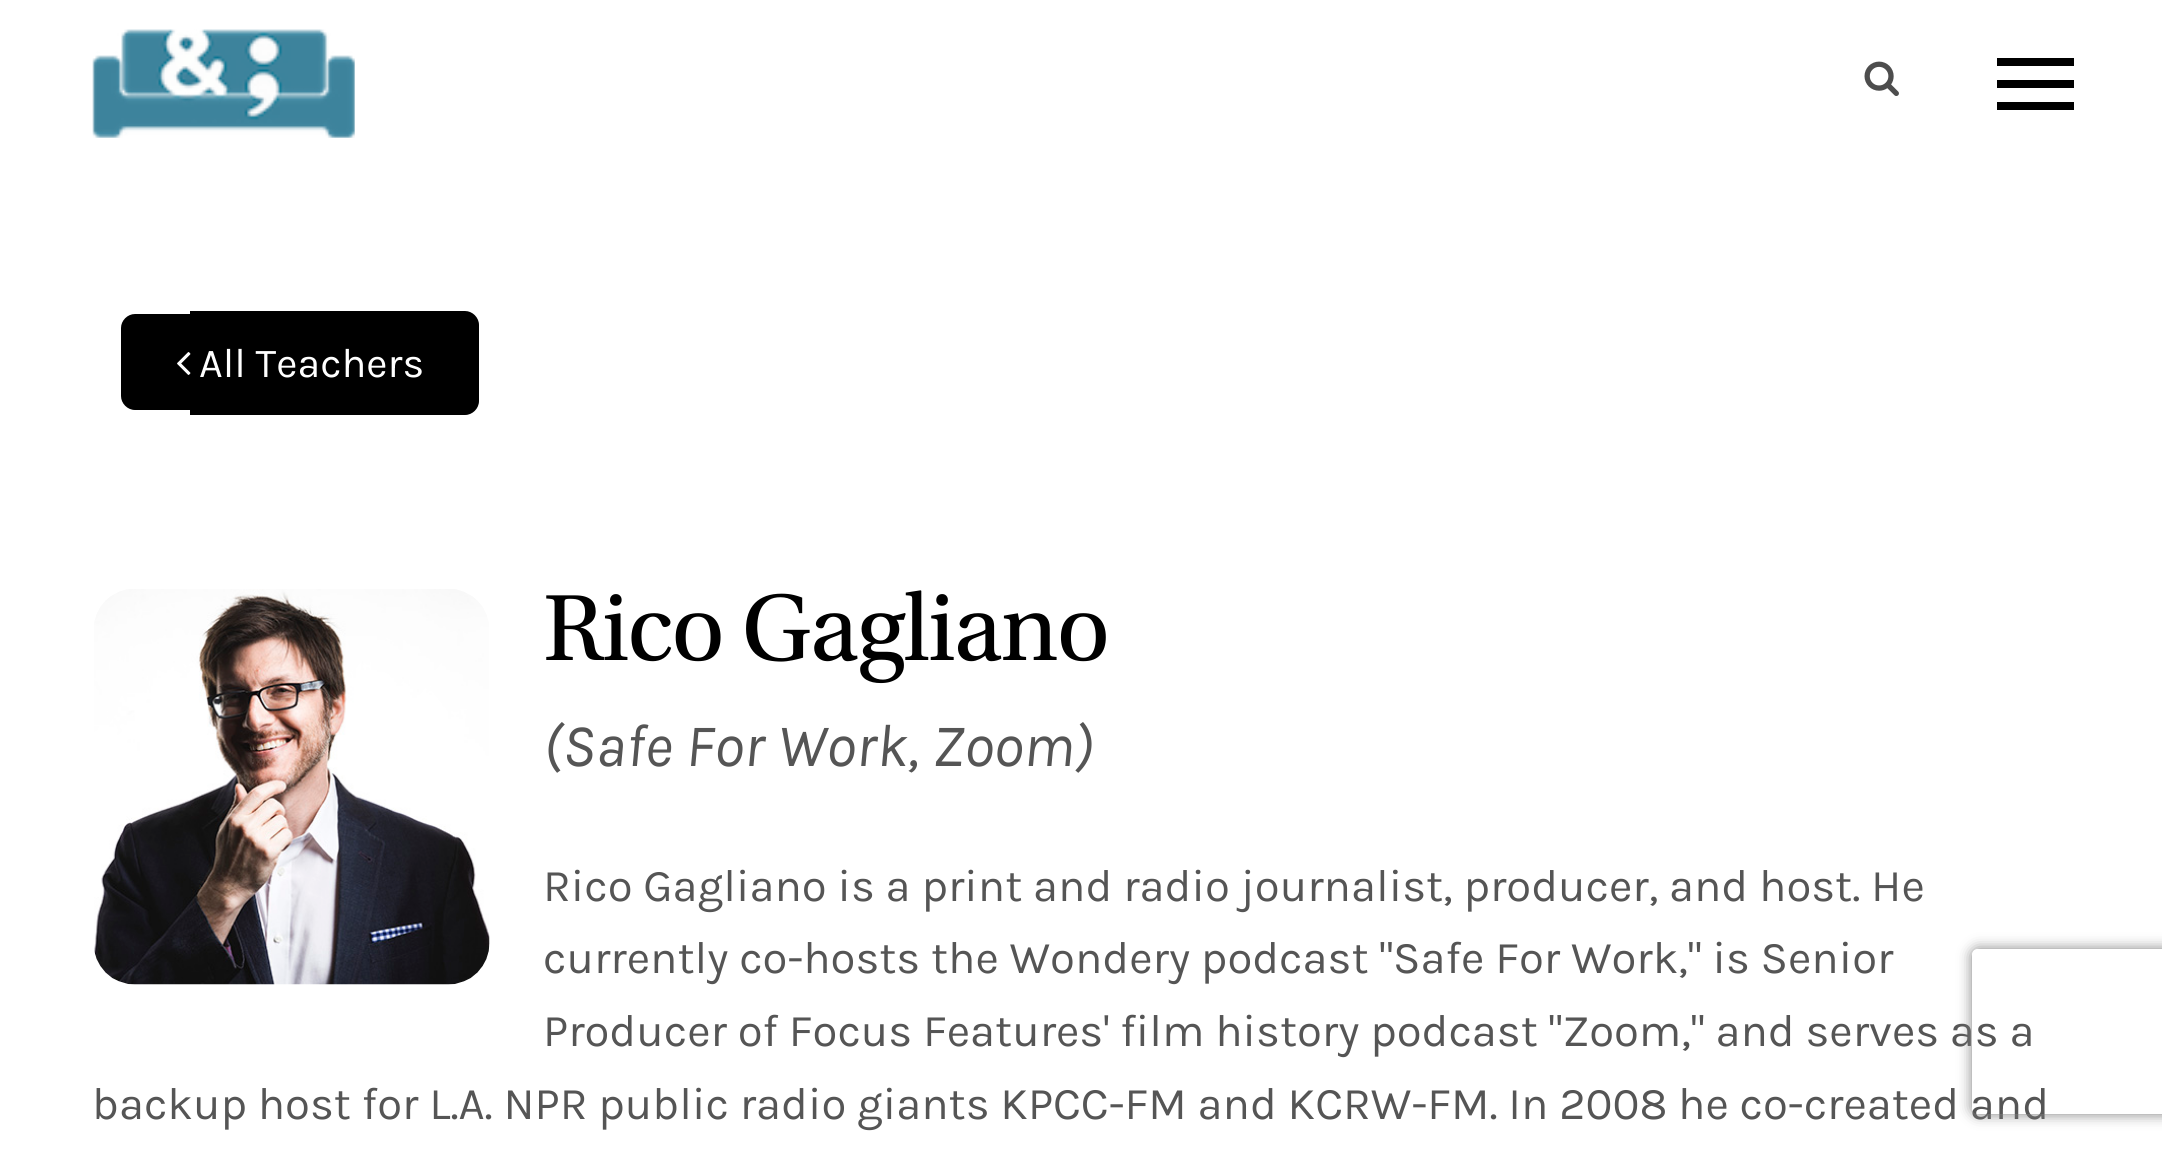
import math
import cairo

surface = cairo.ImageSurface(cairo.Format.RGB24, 2162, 1150)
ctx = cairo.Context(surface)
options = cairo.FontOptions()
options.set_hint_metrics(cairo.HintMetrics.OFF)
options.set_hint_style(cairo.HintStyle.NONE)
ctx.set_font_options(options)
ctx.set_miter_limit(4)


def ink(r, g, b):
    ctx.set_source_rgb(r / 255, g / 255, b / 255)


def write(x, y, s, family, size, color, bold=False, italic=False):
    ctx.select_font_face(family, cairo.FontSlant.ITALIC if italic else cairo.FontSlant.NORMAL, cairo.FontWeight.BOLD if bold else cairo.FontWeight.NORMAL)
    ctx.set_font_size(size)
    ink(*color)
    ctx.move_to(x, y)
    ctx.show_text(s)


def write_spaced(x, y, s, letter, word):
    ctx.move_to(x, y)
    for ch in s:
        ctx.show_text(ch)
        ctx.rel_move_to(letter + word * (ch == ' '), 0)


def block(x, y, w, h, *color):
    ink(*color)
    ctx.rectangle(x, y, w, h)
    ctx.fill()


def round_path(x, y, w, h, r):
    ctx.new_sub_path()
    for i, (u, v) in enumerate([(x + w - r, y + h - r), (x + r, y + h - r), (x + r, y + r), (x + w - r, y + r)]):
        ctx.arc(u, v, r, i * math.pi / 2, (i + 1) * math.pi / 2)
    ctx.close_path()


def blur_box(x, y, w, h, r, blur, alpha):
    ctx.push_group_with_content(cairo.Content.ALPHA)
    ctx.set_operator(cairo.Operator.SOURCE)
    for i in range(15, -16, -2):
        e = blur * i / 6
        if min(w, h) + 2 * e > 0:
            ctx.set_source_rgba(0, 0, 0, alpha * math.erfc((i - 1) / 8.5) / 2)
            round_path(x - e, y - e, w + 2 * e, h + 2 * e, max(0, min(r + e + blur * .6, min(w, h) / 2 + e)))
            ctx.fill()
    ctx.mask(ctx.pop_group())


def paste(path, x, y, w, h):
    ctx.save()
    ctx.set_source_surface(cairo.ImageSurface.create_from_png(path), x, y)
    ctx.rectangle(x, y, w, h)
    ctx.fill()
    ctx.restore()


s1 = dict(family="Karla", size=41.25, color=(255, 255, 255))
s2 = dict(family="Karla", size=60.5, color=(85, 85, 85), italic=True)
s3 = dict(family="Karla", size=45.4, color=(85, 85, 85))

ink(255, 255, 255)
ctx.paint()
paste("pic1.png", 92, 29, 263, 109)
paste("pic2.png", 1864, 61, 35, 35)
block(1997, 80, 77, 8, 0, 0, 0)
block(1997, 58, 77, 8, 0, 0, 0)
block(1997, 102, 77, 8, 0, 0, 0)
ctx.new_path()
ctx.move_to(135, 314)
ctx.line_to(190, 314)
ctx.line_to(190, 410)
ctx.line_to(135, 410)
ctx.curve_to(127.5, 410, 121, 403.5, 121, 396)
ctx.line_to(121, 328)
ctx.curve_to(121, 320.5, 127.5, 314, 135, 314)
ctx.close_path()
ctx.fill()
ctx.new_path()
ctx.move_to(190, 311)
ctx.line_to(465, 311)
ctx.curve_to(472.5, 311, 479, 317.5, 479, 325)
ctx.line_to(479, 401)
ctx.curve_to(479, 408.5, 472.5, 415, 465, 415)
ctx.line_to(190, 415)
ctx.close_path()
ctx.fill()
paste("pic3.png", 177, 352, 14, 23)
write(199, 377, "All Teachers", **s1)
paste("pic4.png", 94, 589, 396, 396)
ctx.select_font_face("Utopia")
ctx.set_font_size(99)
ink(0, 0, 0)
write_spaced(543, 660, "Rico Gagliano", -2, 0)
write(543, 766, "(Safe For Work, Zoom)", **s2)
write(543, 901, "Rico Gagliano is a print and radio journalist, producer, and host. He", **s3)
write(543, 973, "currently co-hosts the Wondery podcast \"Safe For Work,\" is Senior", **s3)
write(543, 1046, "Producer of Focus Features' film history podcast \"Zoom,\" and serves as a", **s3)
write(92, 1119, "backup host for L.A. NPR public radio giants KPCC-FM and KCRW-FM. In 2008 he co-created and", **s3)
ctx.save()
ctx.set_fill_rule(cairo.FillRule.EVEN_ODD)
ctx.new_path()
ctx.move_to(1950, 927)
ctx.line_to(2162, 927)
ctx.line_to(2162, 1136)
ctx.line_to(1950, 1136)
ctx.close_path()
ctx.move_to(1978, 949)
ctx.line_to(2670, 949)
ctx.curve_to(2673.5, 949, 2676, 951.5, 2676, 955)
ctx.line_to(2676, 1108)
ctx.curve_to(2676, 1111.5, 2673.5, 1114, 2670, 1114)
ctx.line_to(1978, 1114)
ctx.curve_to(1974.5, 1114, 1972, 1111.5, 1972, 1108)
ctx.line_to(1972, 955)
ctx.curve_to(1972, 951.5, 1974.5, 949, 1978, 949)
ctx.close_path()
ctx.clip()
ink(128, 128, 128)
blur_box(1972, 949, 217, 165, 6, 7, 1)
ctx.restore()
surface.write_to_png("screenshot.png")
